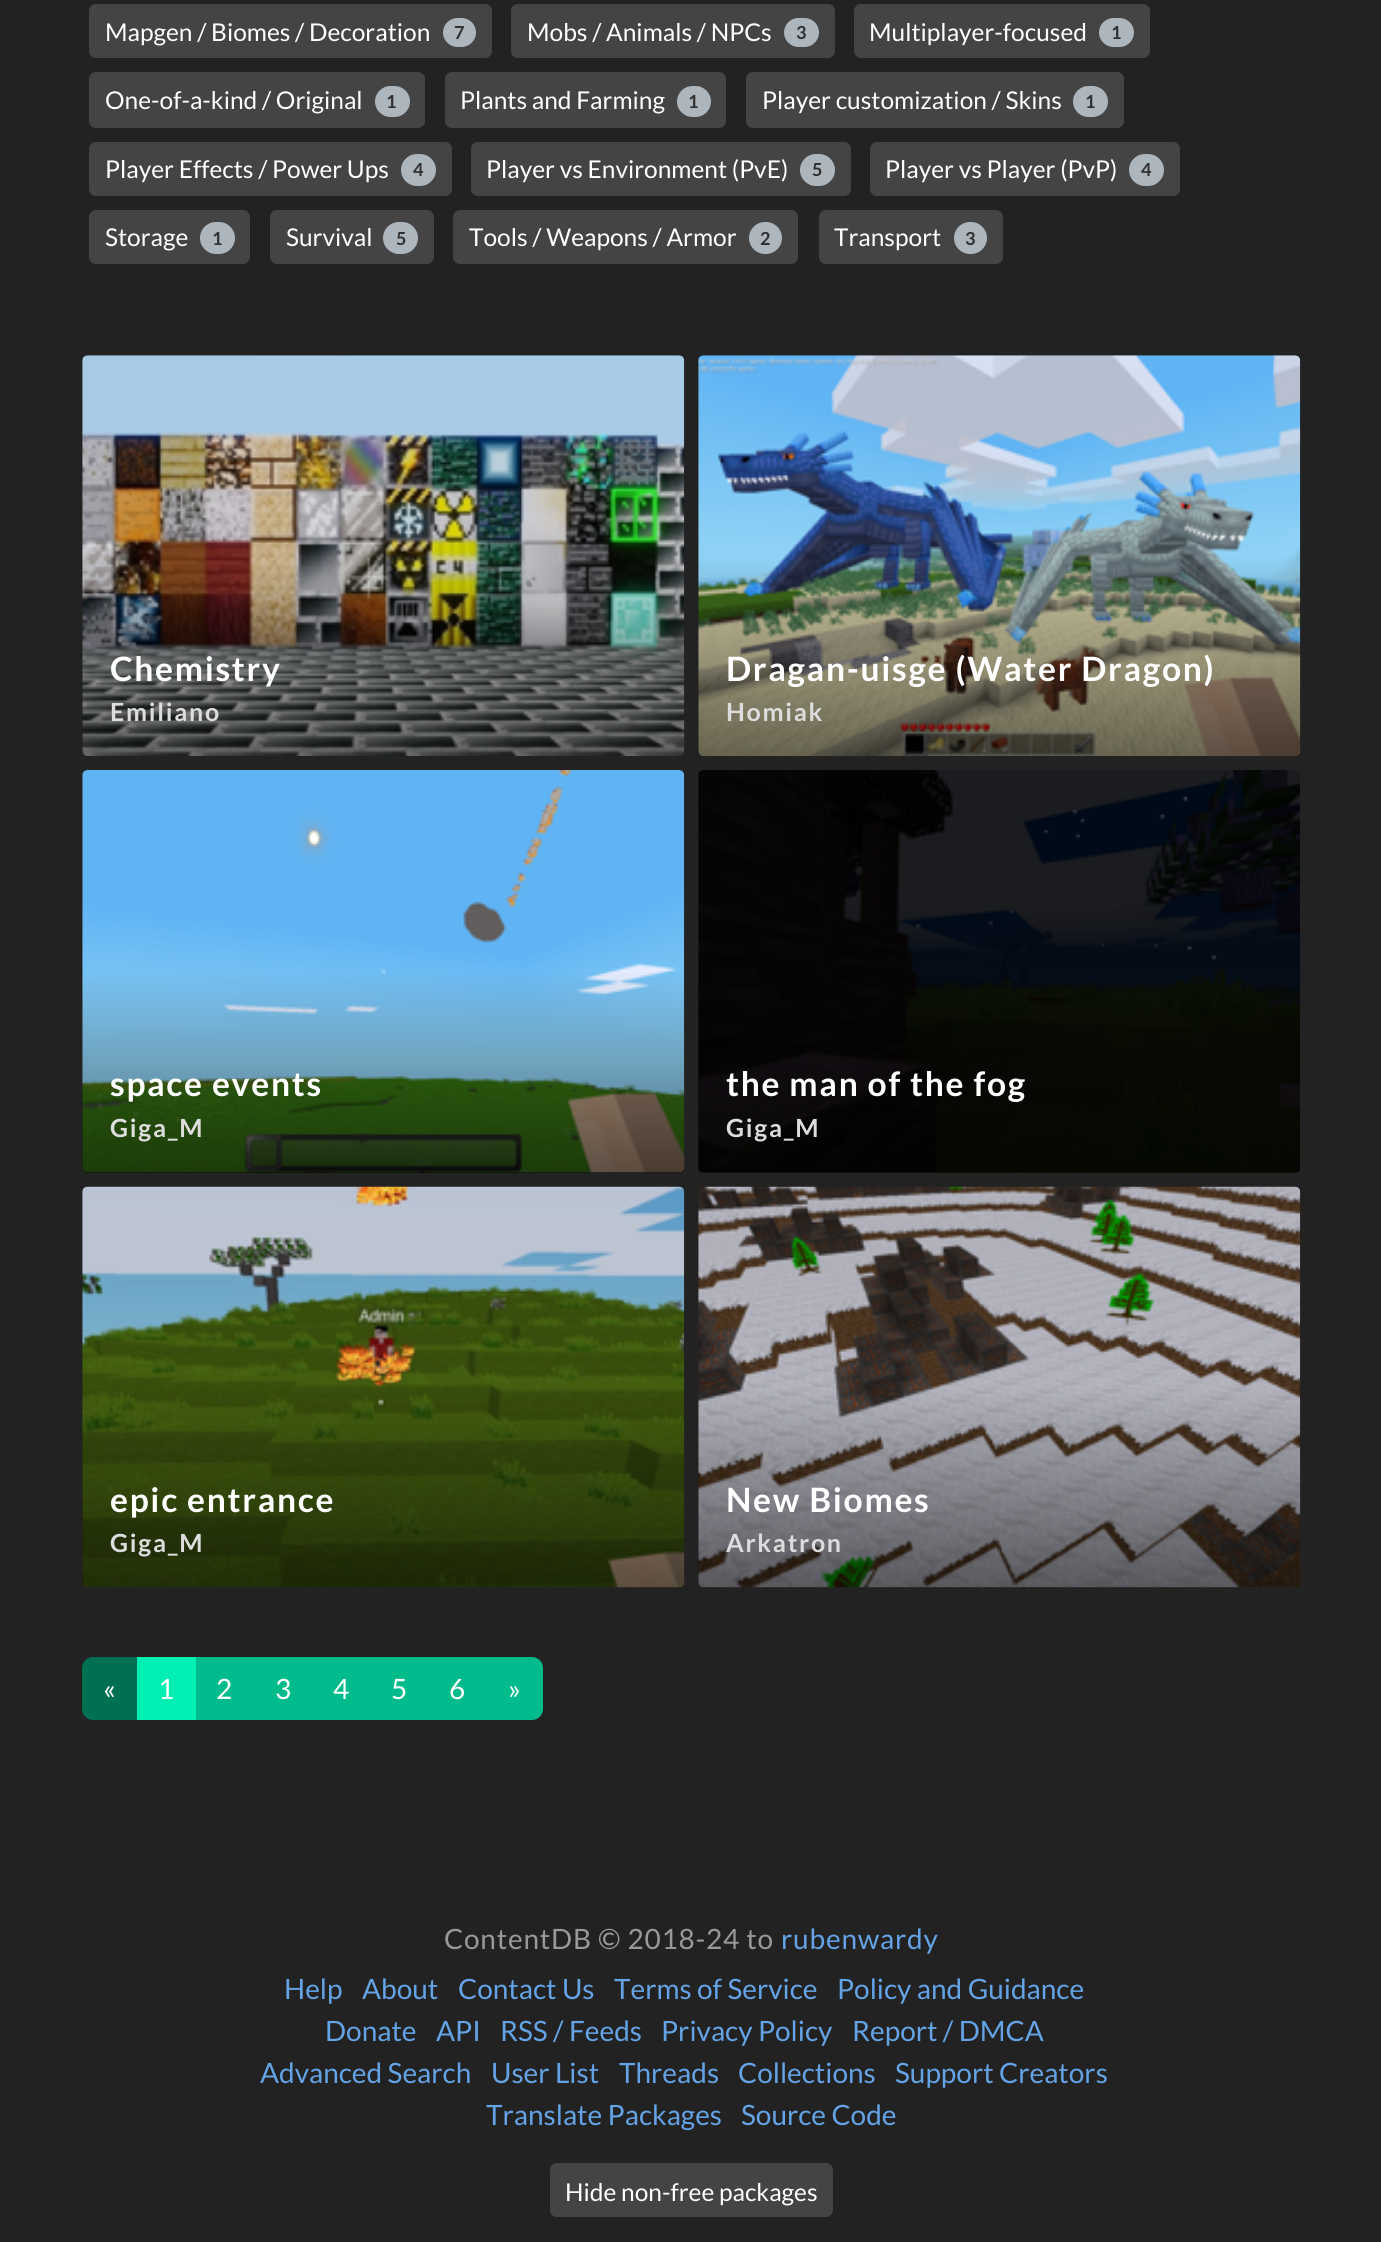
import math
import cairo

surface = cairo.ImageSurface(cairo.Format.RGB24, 1381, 2242)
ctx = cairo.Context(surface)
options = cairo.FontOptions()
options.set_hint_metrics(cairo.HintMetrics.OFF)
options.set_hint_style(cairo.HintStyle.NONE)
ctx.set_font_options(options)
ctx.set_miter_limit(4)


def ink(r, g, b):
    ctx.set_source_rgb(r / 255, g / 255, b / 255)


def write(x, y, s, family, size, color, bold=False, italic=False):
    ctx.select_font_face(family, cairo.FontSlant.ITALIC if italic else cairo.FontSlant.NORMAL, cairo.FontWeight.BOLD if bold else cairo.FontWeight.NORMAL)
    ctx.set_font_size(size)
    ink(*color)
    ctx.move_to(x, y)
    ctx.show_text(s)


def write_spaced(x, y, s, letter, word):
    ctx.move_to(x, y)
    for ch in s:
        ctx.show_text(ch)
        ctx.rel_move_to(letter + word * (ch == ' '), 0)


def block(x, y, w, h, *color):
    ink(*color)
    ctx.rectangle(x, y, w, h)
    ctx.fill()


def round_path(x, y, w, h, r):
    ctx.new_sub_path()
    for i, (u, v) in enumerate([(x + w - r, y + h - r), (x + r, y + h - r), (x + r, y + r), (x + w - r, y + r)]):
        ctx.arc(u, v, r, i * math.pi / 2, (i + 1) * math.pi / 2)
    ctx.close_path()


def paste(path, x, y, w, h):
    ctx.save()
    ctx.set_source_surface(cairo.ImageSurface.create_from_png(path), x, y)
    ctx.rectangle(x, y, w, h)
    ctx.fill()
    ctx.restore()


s1 = dict(family="Lato", size=24.5, color=(255, 255, 255))
s2 = dict(family="Lato", size=18, color=(48, 48, 48), bold=True)
s3 = dict(family="Lato", size=28, color=(255, 255, 255))
s4 = dict(family="Lato", size=28, color=(99, 163, 230))

ink(34, 34, 34)
ctx.paint()
ink(68, 68, 68)
round_path(90, 5, 401, 52, 6)
ctx.fill_preserve()
ctx.stroke()
write(105, 41, "Mapgen / Biomes / Decoration", **s1)
ink(173, 181, 189)
round_path(443, 18, 33, 29, 14.5)
ctx.fill()
write(454, 39, "7", **s2)
ink(68, 68, 68)
round_path(512, 5, 322, 52, 6)
ctx.fill_preserve()
ctx.stroke()
write(527, 41, "Mobs / Animals / NPCs", **s1)
ink(173, 181, 189)
round_path(784, 18, 35, 29, 14.5)
ctx.fill()
write(796, 39, "3", **s2)
ink(68, 68, 68)
round_path(855, 5, 294, 52, 6)
ctx.fill_preserve()
ctx.stroke()
write(869, 41, "Multiplayer-focused", **s1)
ink(173, 181, 189)
round_path(1099, 18, 35, 29, 14.5)
ctx.fill()
write(1111, 39, "1", **s2)
ink(68, 68, 68)
round_path(90, 73, 334, 54, 6)
ctx.fill_preserve()
ctx.stroke()
write(105, 109, "One-of-a-kind / Original", **s1)
ink(173, 181, 189)
round_path(375, 86, 35, 31, 15.5)
ctx.fill()
write(386, 108, "1", **s2)
ink(68, 68, 68)
round_path(446, 73, 279, 54, 6)
ctx.fill_preserve()
ctx.stroke()
write(460, 109, "Plants and Farming", **s1)
ink(173, 181, 189)
round_path(677, 86, 34, 31, 15.5)
ctx.fill()
write(688, 108, "1", **s2)
ink(68, 68, 68)
round_path(747, 73, 376, 54, 6)
ctx.fill_preserve()
ctx.stroke()
write(762, 109, "Player customization / Skins", **s1)
ink(173, 181, 189)
round_path(1073, 86, 35, 31, 15.5)
ctx.fill()
write(1085, 108, "1", **s2)
ink(68, 68, 68)
round_path(90, 143, 361, 52, 6)
ctx.fill_preserve()
ctx.stroke()
write(105, 178, "Player Effects / Power Ups", **s1)
ink(173, 181, 189)
round_path(401, 154, 35, 32, 16)
ctx.fill()
write(413, 176, "4", **s2)
ink(68, 68, 68)
round_path(472, 143, 378, 52, 6)
ctx.fill_preserve()
ctx.stroke()
write(486, 178, "Player vs Environment (PvE)", **s1)
ink(173, 181, 189)
round_path(800, 154, 35, 32, 16)
ctx.fill()
write(812, 176, "5", **s2)
ink(68, 68, 68)
round_path(871, 143, 308, 52, 6)
ctx.fill_preserve()
ctx.stroke()
write(885, 178, "Player vs Player (PvP)", **s1)
ink(173, 181, 189)
round_path(1129, 154, 35, 32, 16)
ctx.fill()
write(1141, 176, "4", **s2)
ink(68, 68, 68)
round_path(90, 211, 159, 52, 6)
ctx.fill_preserve()
ctx.stroke()
write(105, 246, "Storage", **s1)
ink(173, 181, 189)
round_path(200, 222, 35, 32, 16)
ctx.fill()
write(212, 245, "1", **s2)
ink(68, 68, 68)
round_path(271, 211, 162, 52, 6)
ctx.fill_preserve()
ctx.stroke()
write(286, 246, "Survival", **s1)
ink(173, 181, 189)
round_path(383, 222, 35, 32, 16)
ctx.fill()
write(396, 245, "5", **s2)
ink(68, 68, 68)
round_path(454, 211, 343, 52, 6)
ctx.fill_preserve()
ctx.stroke()
write(469, 246, "Tools / Weapons / Armor", **s1)
ink(173, 181, 189)
round_path(749, 222, 33, 32, 16)
ctx.fill()
write(760, 245, "2", **s2)
ink(68, 68, 68)
round_path(820, 211, 182, 52, 6)
ctx.fill_preserve()
ctx.stroke()
write(834, 246, "Transport", **s1)
ink(173, 181, 189)
round_path(954, 222, 33, 32, 16)
ctx.fill()
write(965, 245, "3", **s2)
paste("pic1.png", 82, 355, 603, 401)
gradient = cairo.LinearGradient(383, 557, 383, 756)
gradient.add_color_stop_rgba(0, 0, 0, 0, 0)
gradient.add_color_stop_rgba(1, 0, 0, 0, 0.5)
ctx.set_source(gradient)
ctx.new_path()
ctx.move_to(82, 557)
ctx.line_to(684, 557)
ctx.line_to(684, 751)
ctx.curve_to(684, 754, 682, 756, 679, 756)
ctx.line_to(87, 756)
ctx.curve_to(84, 756, 82, 754, 82, 751)
ctx.close_path()
ctx.fill()
ctx.set_font_size(33.6)
ink(255, 255, 255)
write_spaced(110, 681, "Chemistry", 1.7, 0)
ctx.set_font_size(25)
ink(221, 221, 221)
write_spaced(110, 721, "Emiliano", 1.7, 0)
paste("pic2.png", 698, 355, 603, 401)
gradient = cairo.LinearGradient(999, 557, 999, 756)
gradient.add_color_stop_rgba(0, 0, 0, 0, 0)
gradient.add_color_stop_rgba(1, 0, 0, 0, 0.5)
ctx.set_source(gradient)
ctx.new_path()
ctx.move_to(698, 557)
ctx.line_to(1300, 557)
ctx.line_to(1300, 751)
ctx.curve_to(1300, 754, 1298, 756, 1295, 756)
ctx.line_to(703, 756)
ctx.curve_to(700, 756, 698, 754, 698, 751)
ctx.close_path()
ctx.fill()
ctx.set_font_size(33.6)
ink(255, 255, 255)
write_spaced(726, 681, "Dragan-uisge (Water Dragon)", 1.7, 0)
ctx.set_font_size(25)
ink(221, 221, 221)
write_spaced(726, 721, "Homiak", 1.7, 0)
paste("pic3.png", 82, 770, 603, 403)
gradient = cairo.LinearGradient(383, 971, 383, 1173)
gradient.add_color_stop_rgba(0, 0, 0, 0, 0)
gradient.add_color_stop_rgba(1, 0, 0, 0, 0.5)
ctx.set_source(gradient)
ctx.new_path()
ctx.move_to(82, 971)
ctx.line_to(684, 971)
ctx.line_to(684, 1168)
ctx.curve_to(684, 1171, 682, 1173, 679, 1173)
ctx.line_to(87, 1173)
ctx.curve_to(84, 1173, 82, 1171, 82, 1168)
ctx.close_path()
ctx.fill()
ctx.set_font_size(33.6)
ink(255, 255, 255)
write_spaced(110, 1096, "space events", 1.7, 0)
ctx.set_font_size(25)
ink(221, 221, 221)
write_spaced(110, 1137, "Giga_M", 1.7, 0)
paste("pic4.png", 698, 770, 602, 403)
gradient = cairo.LinearGradient(999, 971, 999, 1173)
gradient.add_color_stop_rgba(0, 0, 0, 0, 0)
gradient.add_color_stop_rgba(1, 0, 0, 0, 0.5)
ctx.set_source(gradient)
ctx.new_path()
ctx.move_to(698, 971)
ctx.line_to(1300, 971)
ctx.line_to(1300, 1168)
ctx.curve_to(1300, 1171, 1298, 1173, 1295, 1173)
ctx.line_to(703, 1173)
ctx.curve_to(700, 1173, 698, 1171, 698, 1168)
ctx.close_path()
ctx.fill()
ctx.set_font_size(33.6)
ink(255, 255, 255)
write_spaced(726, 1096, "the man of the fog", 1.7, 0)
ctx.set_font_size(25)
ink(221, 221, 221)
write_spaced(726, 1137, "Giga_M", 1.7, 0)
paste("pic5.png", 82, 1186, 603, 402)
gradient = cairo.LinearGradient(383, 1386, 383, 1587)
gradient.add_color_stop_rgba(0, 0, 0, 0, 0)
gradient.add_color_stop_rgba(1, 0, 0, 0, 0.5)
ctx.set_source(gradient)
ctx.new_path()
ctx.move_to(82, 1386)
ctx.line_to(684, 1386)
ctx.line_to(684, 1582)
ctx.curve_to(684, 1585, 682, 1587, 679, 1587)
ctx.line_to(87, 1587)
ctx.curve_to(84, 1587, 82, 1585, 82, 1582)
ctx.close_path()
ctx.fill()
ctx.set_font_size(33.6)
ink(255, 255, 255)
write_spaced(110, 1512, "epic entrance", 1.7, 0)
ctx.set_font_size(25)
ink(221, 221, 221)
write_spaced(110, 1552, "Giga_M", 1.7, 0)
paste("pic6.png", 698, 1186, 603, 402)
gradient = cairo.LinearGradient(999, 1386, 999, 1587)
gradient.add_color_stop_rgba(0, 0, 0, 0, 0)
gradient.add_color_stop_rgba(1, 0, 0, 0, 0.5)
ctx.set_source(gradient)
ctx.new_path()
ctx.move_to(698, 1386)
ctx.line_to(1300, 1386)
ctx.line_to(1300, 1582)
ctx.curve_to(1300, 1585, 1298, 1587, 1295, 1587)
ctx.line_to(703, 1587)
ctx.curve_to(700, 1587, 698, 1585, 698, 1582)
ctx.close_path()
ctx.fill()
ctx.set_font_size(33.6)
ink(255, 255, 255)
write_spaced(726, 1512, "New Biomes", 1.7, 0)
ctx.set_font_size(25)
ink(221, 221, 221)
write_spaced(726, 1552, "Arkatron", 1.7, 0)
ink(0, 112, 83)
ctx.new_path()
ctx.move_to(93, 1657)
ctx.line_to(137, 1657)
ctx.line_to(137, 1720)
ctx.line_to(93, 1720)
ctx.curve_to(87, 1720, 82, 1715, 82, 1709)
ctx.line_to(82, 1668)
ctx.curve_to(82, 1662, 87, 1657, 93, 1657)
ctx.close_path()
ctx.fill()
write(103, 1699, "«", **s3)
block(137, 1657, 59, 63, 0, 239, 178)
write(158, 1699, "1", **s3)
block(196, 1657, 291, 63, 0, 188, 140)
write(216, 1699, "2", **s3)
write(275, 1699, "3", **s3)
write(333, 1699, "4", **s3)
write(391, 1699, "5", **s3)
write(449, 1699, "6", **s3)
ink(0, 188, 140)
ctx.new_path()
ctx.move_to(487, 1657)
ctx.line_to(532, 1657)
ctx.curve_to(538, 1657, 543, 1662, 543, 1668)
ctx.line_to(543, 1709)
ctx.curve_to(543, 1715, 538, 1720, 532, 1720)
ctx.line_to(487, 1720)
ctx.close_path()
ctx.fill()
write(508, 1699, "»", **s3)
ink(153, 153, 153)
write_spaced(444, 1949, "ContentDB © 2018-24 to", 0.8, 0)
ink(99, 163, 230)
write_spaced(781, 1949, "rubenwardy", 0.8, 0)
write(284, 1999, "Help", **s4)
write(362, 1999, "About", **s4)
write(458, 1999, "Contact Us", **s4)
write(614, 1999, "Terms of Service", **s4)
write(837, 1999, "Policy and Guidance", **s4)
write(325, 2041, "Donate", **s4)
write(436, 2041, "API", **s4)
write(500, 2041, "RSS / Feeds", **s4)
write(661, 2041, "Privacy Policy", **s4)
write(852, 2041, "Report / DMCA", **s4)
write(260, 2083, "Advanced Search", **s4)
write(491, 2083, "User List", **s4)
write(619, 2083, "Threads", **s4)
write(738, 2083, "Collections", **s4)
write(895, 2083, "Support Creators", **s4)
write(486, 2125, "Translate Packages", **s4)
write(741, 2125, "Source Code", **s4)
ink(68, 68, 68)
round_path(551, 2164, 281, 52, 6)
ctx.fill_preserve()
ctx.stroke()
write(565, 2201, "Hide non-free packages", **s1)
surface.write_to_png("screenshot.png")
